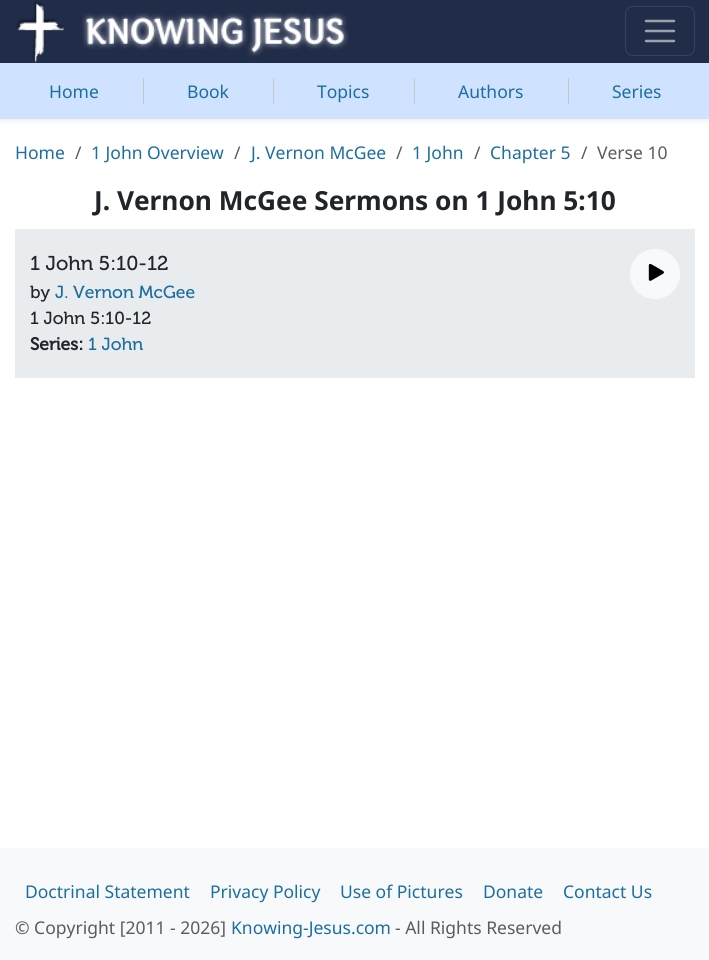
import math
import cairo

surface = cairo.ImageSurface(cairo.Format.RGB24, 709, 960)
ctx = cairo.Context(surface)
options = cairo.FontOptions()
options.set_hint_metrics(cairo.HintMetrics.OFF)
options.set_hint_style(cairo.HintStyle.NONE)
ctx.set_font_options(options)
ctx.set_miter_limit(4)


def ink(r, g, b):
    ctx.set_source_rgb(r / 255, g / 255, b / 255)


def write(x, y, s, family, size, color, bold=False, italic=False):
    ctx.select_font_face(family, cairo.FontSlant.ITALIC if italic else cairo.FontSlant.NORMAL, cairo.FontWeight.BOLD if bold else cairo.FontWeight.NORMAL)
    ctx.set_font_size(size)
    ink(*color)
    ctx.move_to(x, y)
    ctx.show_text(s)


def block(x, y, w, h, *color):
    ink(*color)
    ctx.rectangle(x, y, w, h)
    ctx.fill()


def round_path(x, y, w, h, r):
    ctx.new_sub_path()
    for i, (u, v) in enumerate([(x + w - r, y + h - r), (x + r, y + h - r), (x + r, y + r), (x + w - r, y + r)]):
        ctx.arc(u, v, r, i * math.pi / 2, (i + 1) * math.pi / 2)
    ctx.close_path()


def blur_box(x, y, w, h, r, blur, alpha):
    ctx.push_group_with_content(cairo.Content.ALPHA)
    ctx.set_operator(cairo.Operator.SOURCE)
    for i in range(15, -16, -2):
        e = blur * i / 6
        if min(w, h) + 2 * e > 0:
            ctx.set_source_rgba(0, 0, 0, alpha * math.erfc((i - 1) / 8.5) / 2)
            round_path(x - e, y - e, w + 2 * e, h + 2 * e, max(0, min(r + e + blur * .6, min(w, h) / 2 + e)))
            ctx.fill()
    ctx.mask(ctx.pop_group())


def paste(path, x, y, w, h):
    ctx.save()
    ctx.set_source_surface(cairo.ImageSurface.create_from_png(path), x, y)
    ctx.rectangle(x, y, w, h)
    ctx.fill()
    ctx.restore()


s1 = dict(family="Noto Sans", size=17.5, color=(28, 110, 160))
s2 = dict(family="Noto Sans", size=17.5, color=(89, 92, 95))
s3 = dict(family="Noto Sans", size=26.25, color=(33, 37, 41), bold=True)
s4 = dict(family="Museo", size=20, color=(33, 37, 41))
s5 = dict(family="Museo", size=17.5, color=(33, 37, 41))
s6 = dict(family="Museo", size=17.5, color=(28, 110, 160))
s7 = dict(family="Museo", size=17.5, color=(33, 37, 41), bold=True)

ink(255, 255, 255)
ctx.paint()
ink(0, 0, 0)
blur_box(0, 65, 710, 56, 0, 2.5, 0.07)
block(0, 0, 709, 63, 33, 44, 72)
paste("pic1.png", 16, 0, 333, 63)
round_path(625.5, 6.5, 69, 49, 7.5)
ink(55, 65, 90)
ctx.set_line_width(1)
ctx.stroke()
ctx.new_path()
ctx.move_to(646, 21)
ctx.line_to(674, 21)
ctx.move_to(646, 31)
ctx.line_to(674, 31)
ctx.move_to(646, 41)
ctx.line_to(674, 41)
ink(155, 160, 173)
ctx.set_line_width(2.5)
ctx.set_line_cap(cairo.LineCap.ROUND)
ctx.stroke()
block(0, 63, 709, 56, 207, 226, 255)
write(49, 98, "Home", **s1)
block(143, 78, 1, 26, 196, 200, 203)
write(187, 98, "Book", **s1)
block(273, 78, 1, 26, 196, 200, 203)
write(317, 98, "Topics", **s1)
block(414, 78, 1, 26, 196, 200, 203)
write(458, 98, "Authors", **s1)
block(568, 78, 1, 26, 196, 200, 203)
write(612, 98, "Series", **s1)
write(15, 159, "Home", **s1)
write(75, 159, "/", **s2)
write(91, 159, "1 John Overview", **s1)
write(234, 159, "/", **s2)
write(251, 159, "J. Vernon McGee", **s1)
write(396, 159, "/", **s2)
write(412, 159, "1 John", **s1)
write(474, 159, "/", **s2)
write(490, 159, "Chapter 5", **s1)
write(581, 159, "/", **s2)
write(597, 159, "Verse 10", **s2)
write(94, 210, "J. Vernon McGee Sermons on 1 John 5:10", **s3)
block(15, 229, 680, 149, 233, 236, 239)
write(30, 270, "1 John 5:10-12", **s4)
write(30, 298, "by", **s5)
write(55, 298, "J. Vernon McGee", **s6)
write(30, 324, "1 John 5:10-12", **s5)
write(30, 350, "Series:", **s7)
write(88, 350, "1 John", **s6)
ink(248, 249, 250)
ctx.new_path()
ctx.arc(655, 274, 24.5, 0, 2 * math.pi)
ctx.fill_preserve()
ctx.set_line_width(1)
ctx.set_line_cap(cairo.LineCap.BUTT)
ctx.stroke()
paste("pic2.png", 648, 263, 16, 18)
block(0, 848, 709, 112, 248, 249, 250)
write(25, 898, "Doctrinal Statement", **s1)
write(210, 898, "Privacy Policy", **s1)
write(340, 898, "Use of Pictures", **s1)
write(483, 898, "Donate", **s1)
write(563, 898, "Contact Us", **s1)
write(15, 934, "© Copyright [2011 - 2026]", **s2)
write(231, 934, "Knowing-Jesus.com", **s1)
write(395, 934, "- All Rights Reserved", **s2)
surface.write_to_png("screenshot.png")
